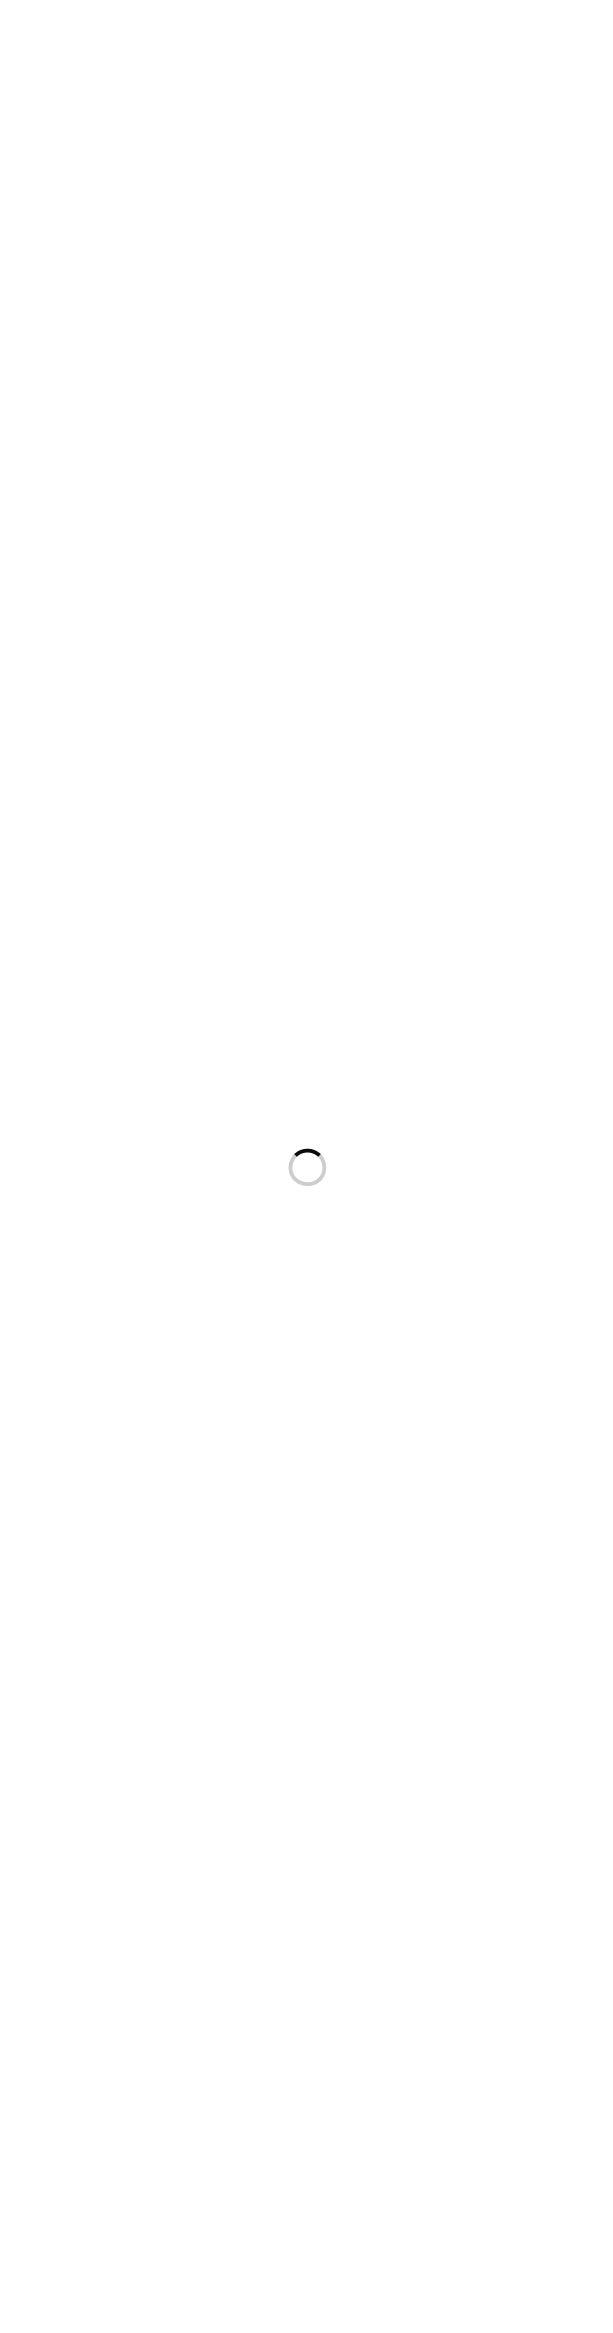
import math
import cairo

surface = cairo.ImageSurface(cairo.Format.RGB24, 613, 2333)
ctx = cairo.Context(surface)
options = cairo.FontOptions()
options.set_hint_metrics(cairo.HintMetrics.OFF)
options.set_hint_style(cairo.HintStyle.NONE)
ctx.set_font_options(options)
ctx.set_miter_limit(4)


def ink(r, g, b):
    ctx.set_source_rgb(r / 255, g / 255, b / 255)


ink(255, 255, 255)
ctx.paint()
ctx.new_path()
ctx.move_to(295.5, 1155.5)
ctx.curve_to(302, 1149, 313, 1149, 319.5, 1155.5)
ink(10, 10, 10)
ctx.set_line_width(3.8)
ctx.stroke()
ctx.new_path()
ctx.move_to(319.5, 1155.5)
ctx.curve_to(323.5, 1159.5, 325, 1165.5, 324, 1171)
ctx.curve_to(320, 1190.5, 290.5, 1187.5, 290.5, 1167.5)
ctx.curve_to(290.5, 1163, 292.5, 1158.5, 295.5, 1155.5)
ctx.set_source_rgba(0.039, 0.039, 0.039, 0.2)
ctx.stroke()
surface.write_to_png("screenshot.png")
